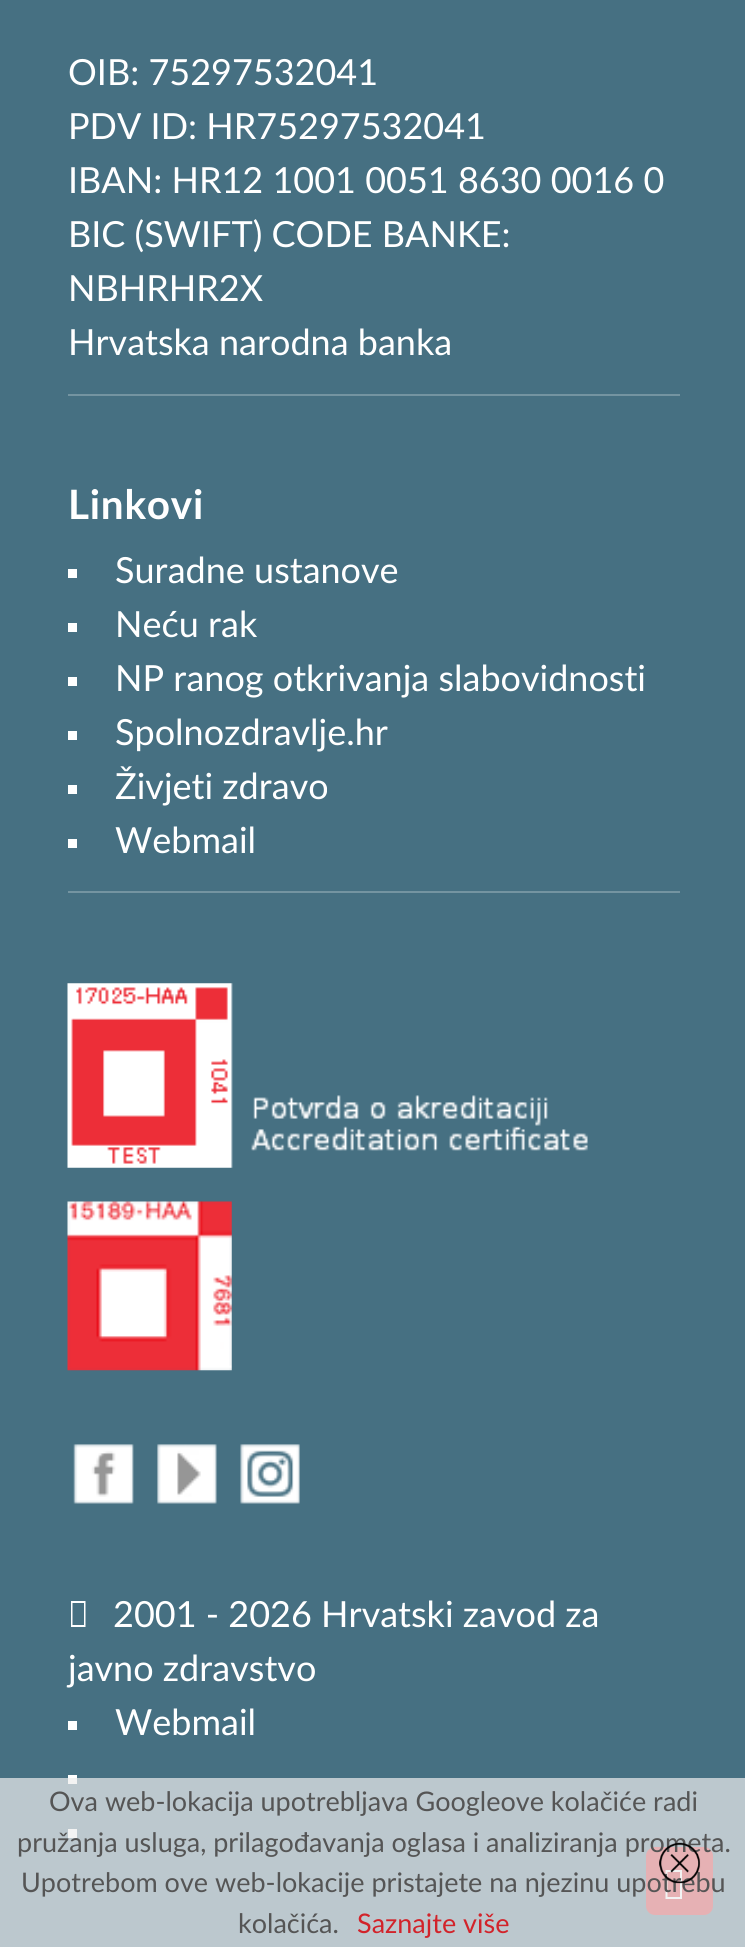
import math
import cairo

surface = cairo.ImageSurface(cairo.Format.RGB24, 745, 1947)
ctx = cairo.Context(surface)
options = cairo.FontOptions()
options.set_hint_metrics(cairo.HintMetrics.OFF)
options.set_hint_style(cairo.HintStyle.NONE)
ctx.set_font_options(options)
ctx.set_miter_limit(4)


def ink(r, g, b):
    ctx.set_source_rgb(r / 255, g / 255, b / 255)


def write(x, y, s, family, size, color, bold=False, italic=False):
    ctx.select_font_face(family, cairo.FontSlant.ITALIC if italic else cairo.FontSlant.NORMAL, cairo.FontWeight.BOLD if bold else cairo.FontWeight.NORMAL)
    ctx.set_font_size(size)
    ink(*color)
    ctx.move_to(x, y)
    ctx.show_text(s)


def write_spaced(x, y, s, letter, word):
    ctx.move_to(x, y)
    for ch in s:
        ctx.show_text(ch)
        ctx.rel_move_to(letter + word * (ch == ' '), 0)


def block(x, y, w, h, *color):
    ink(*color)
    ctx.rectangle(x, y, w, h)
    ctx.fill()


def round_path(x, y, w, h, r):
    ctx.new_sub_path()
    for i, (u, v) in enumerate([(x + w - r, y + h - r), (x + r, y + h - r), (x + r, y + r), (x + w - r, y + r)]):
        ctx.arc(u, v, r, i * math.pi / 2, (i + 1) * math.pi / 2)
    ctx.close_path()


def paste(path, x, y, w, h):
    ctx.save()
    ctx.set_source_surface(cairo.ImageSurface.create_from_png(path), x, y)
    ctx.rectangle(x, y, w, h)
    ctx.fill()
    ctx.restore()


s1 = dict(family="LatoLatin", size=36, color=(255, 255, 255))
s2 = dict(family="LatoLatin", size=27, color=(85, 85, 85))
s3 = dict(family="LatoLatin", size=27, color=(210, 35, 42))

ink(70, 112, 130)
ctx.paint()
write(68, 85, "OIB: 75297532041", **s1)
write(68, 139, "PDV ID: HR75297532041", **s1)
write(68, 193, "IBAN: HR12 1001 0051 8630 0016 0", **s1)
write(68, 247, "BIC (SWIFT) CODE BANKE:", **s1)
write(68, 301, "NBHRHR2X", **s1)
write(68, 355, "Hrvatska narodna banka", **s1)
block(68, 394, 612, 2, 116, 148, 161)
ctx.select_font_face("LatoLatin", cairo.FontSlant.NORMAL, cairo.FontWeight.BOLD)
ctx.set_font_size(40.5)
ink(255, 255, 255)
write_spaced(68, 519, "Linkovi", 0.75, 0)
block(68, 569, 9, 9, 255, 255, 255)
write(115, 583, "Suradne ustanove", **s1)
block(68, 623, 9, 9, 255, 255, 255)
write(115, 637, "Neću rak", **s1)
block(68, 677, 9, 9, 255, 255, 255)
write(115, 691, "NP ranog otkrivanja slabovidnosti", **s1)
block(68, 731, 9, 9, 255, 255, 255)
write(115, 745, "Spolnozdravlje.hr", **s1)
block(68, 785, 9, 9, 255, 255, 255)
write(115, 799, "Živjeti zdravo", **s1)
block(68, 839, 9, 9, 255, 255, 255)
write(115, 853, "Webmail", **s1)
block(68, 891, 612, 2, 116, 148, 161)
paste("pic1.png", 67, 983, 521, 185)
paste("pic2.png", 67, 1201, 165, 170)
paste("pic3.png", 73, 1444, 61, 60)
paste("pic4.png", 157, 1444, 60, 60)
paste("pic5.png", 240, 1444, 60, 60)
ink(255, 255, 255)
ctx.new_path()
ctx.move_to(71, 1627)
ctx.line_to(71, 1601)
ctx.line_to(85.5, 1601)
ctx.line_to(85.5, 1627)
ctx.close_path()
ctx.move_to(72.5, 1625)
ctx.line_to(84, 1625)
ctx.line_to(84, 1603)
ctx.line_to(72.5, 1603)
ctx.close_path()
ctx.fill()
write(113, 1627, "2001 - 2026 Hrvatski zavod za", **s1)
write(68, 1681, "javno zdravstvo", **s1)
block(68, 1721, 9, 9, 255, 255, 255)
write(115, 1735, "Webmail", **s1)
block(68, 1775, 9, 9, 255, 255, 255)
block(68, 1829, 9, 9, 255, 255, 255)
ink(210, 35, 42)
round_path(646, 1847, 67, 68, 9)
ctx.fill()
ink(255, 255, 255)
ctx.new_path()
ctx.move_to(665.5, 1899)
ctx.line_to(665.5, 1870)
ctx.line_to(682, 1870)
ctx.line_to(682, 1899)
ctx.close_path()
ctx.move_to(667.5, 1897)
ctx.line_to(680, 1897)
ctx.line_to(680, 1872)
ctx.line_to(667.5, 1872)
ctx.close_path()
ctx.fill()
ctx.set_source_rgba(0.933, 0.933, 0.933, 0.7)
ctx.rectangle(0, 1778, 745, 169)
ctx.fill()
write(49, 1811, "Ova web-lokacija upotrebljava Googleove kolačiće radi", **s2)
write(17, 1852, "pružanja usluga, prilagođavanja oglasa i analiziranja prometa.", **s2)
write(21, 1892, "Upotrebom ove web-lokacije pristajete na njezinu upotrebu", **s2)
write(238, 1933, "kolačića.", **s2)
write(357, 1933, "Saznajte više", **s3)
paste("pic6.png", 659, 1842, 42, 42)
surface.write_to_png("screenshot.png")
